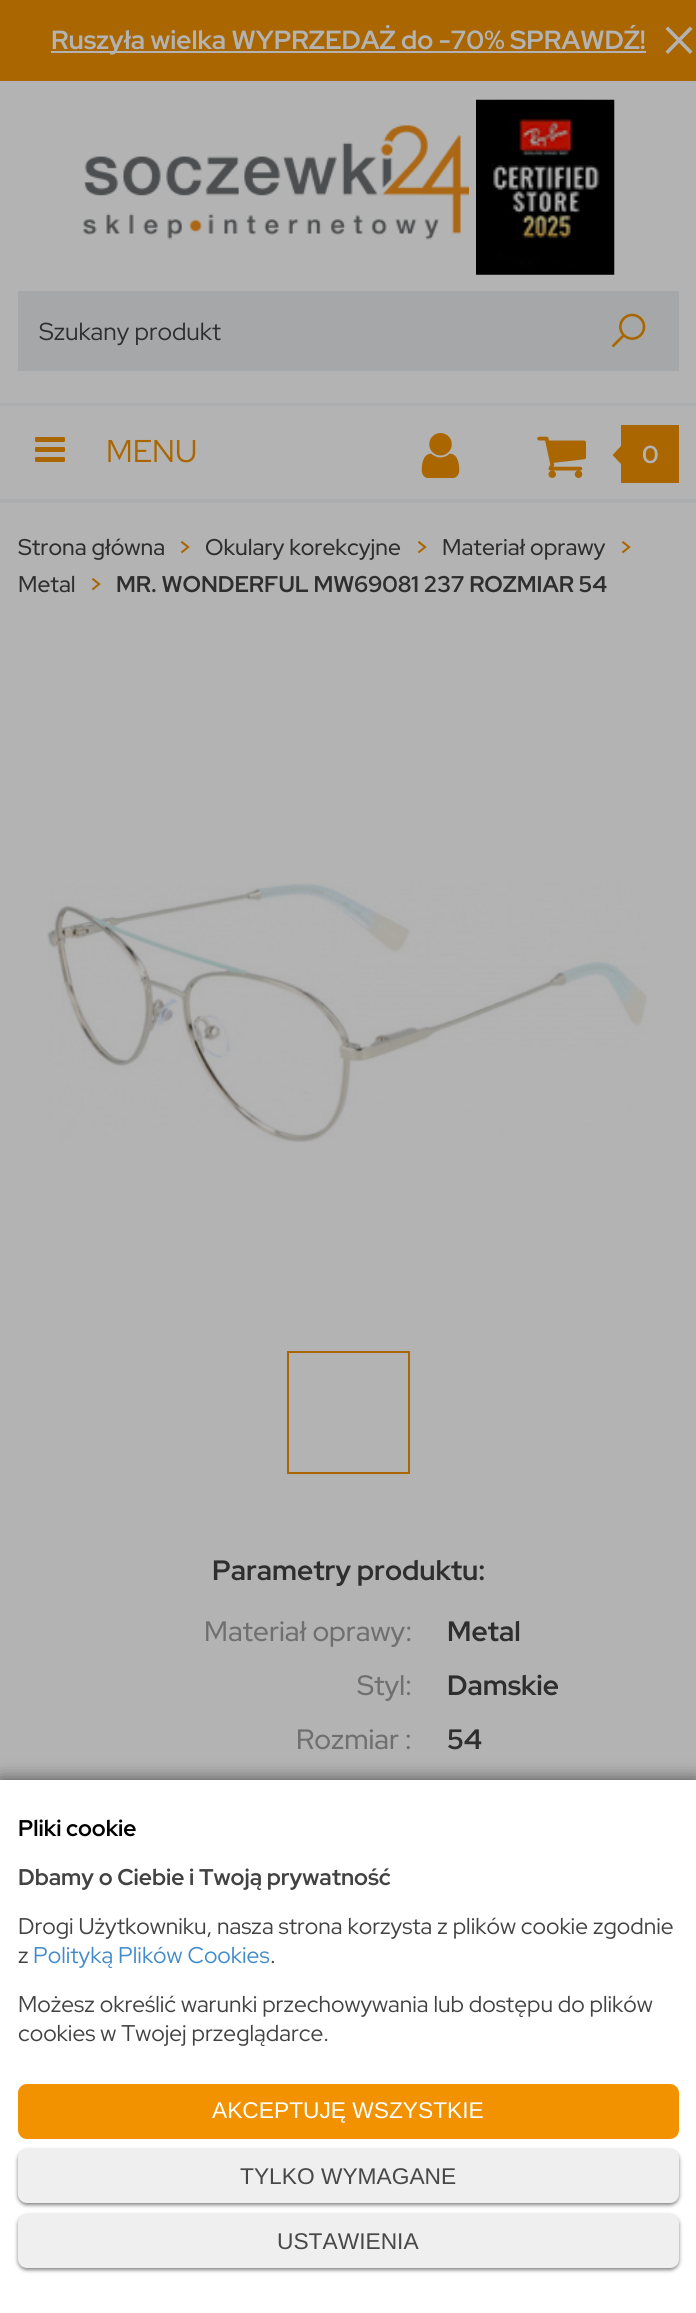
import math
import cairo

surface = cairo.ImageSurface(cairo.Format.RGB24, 696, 2313)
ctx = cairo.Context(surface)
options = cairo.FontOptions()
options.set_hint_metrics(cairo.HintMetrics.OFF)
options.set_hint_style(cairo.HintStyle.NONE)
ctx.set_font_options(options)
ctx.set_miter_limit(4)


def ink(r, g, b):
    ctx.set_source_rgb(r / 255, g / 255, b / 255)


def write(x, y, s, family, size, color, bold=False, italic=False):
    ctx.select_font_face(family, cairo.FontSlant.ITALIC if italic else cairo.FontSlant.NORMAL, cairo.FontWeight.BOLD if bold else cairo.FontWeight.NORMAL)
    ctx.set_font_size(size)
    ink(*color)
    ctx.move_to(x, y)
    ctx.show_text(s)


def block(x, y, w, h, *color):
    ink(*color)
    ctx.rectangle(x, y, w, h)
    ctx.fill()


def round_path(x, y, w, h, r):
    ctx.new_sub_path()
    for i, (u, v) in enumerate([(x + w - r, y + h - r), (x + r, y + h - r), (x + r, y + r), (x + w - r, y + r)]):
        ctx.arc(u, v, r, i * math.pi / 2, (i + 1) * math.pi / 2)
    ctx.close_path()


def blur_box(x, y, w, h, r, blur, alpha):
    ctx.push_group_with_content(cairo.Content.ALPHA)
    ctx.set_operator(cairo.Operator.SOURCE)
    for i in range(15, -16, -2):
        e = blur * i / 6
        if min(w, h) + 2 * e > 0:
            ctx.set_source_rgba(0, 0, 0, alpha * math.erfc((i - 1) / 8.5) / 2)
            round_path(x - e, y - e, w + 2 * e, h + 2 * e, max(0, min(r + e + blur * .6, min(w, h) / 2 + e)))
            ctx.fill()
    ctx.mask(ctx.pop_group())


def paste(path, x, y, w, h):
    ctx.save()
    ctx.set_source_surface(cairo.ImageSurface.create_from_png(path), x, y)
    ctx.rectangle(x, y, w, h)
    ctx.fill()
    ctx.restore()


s1 = dict(family="Red Hat Display", size=26.25, color=(179, 179, 179), bold=True)
s2 = dict(family="Red Hat Display", size=24.5, color=(46, 46, 46))
s3 = dict(family="Red Hat Display", size=31.5, color=(170, 102, 0))
s4 = dict(family="Red Hat Display", size=24.5, color=(179, 179, 179), bold=True)
s5 = dict(family="Red Hat Display Medium", size=22.75, color=(46, 46, 46))
s6 = dict(family="Red Hat Display", size=22.75, color=(170, 102, 0), bold=True)
s7 = dict(family="Red Hat Display", size=22.75, color=(46, 46, 46), bold=True)
s8 = dict(family="Red Hat Display", size=28, color=(46, 46, 46), bold=True)
s9 = dict(family="Red Hat Display Medium", size=28, color=(111, 111, 111))
s10 = dict(family="Red Hat Display", size=22.75, color=(0, 0, 0), bold=True)
s11 = dict(family="Red Hat Display", size=22.75, color=(66, 66, 66), bold=True)
s12 = dict(family="Red Hat Display", size=22.75, color=(66, 66, 66))
s13 = dict(family="Red Hat Display", size=22.75, color=(66, 139, 202))
s14 = dict(family="Liberation Sans", size=22.75, color=(255, 255, 255))
s15 = dict(family="Liberation Sans", size=22.75, color=(72, 72, 72))

ink(179, 179, 179)
ctx.paint()
block(0, 0, 696, 81, 170, 102, 0)
block(51, 51, 595, 2, 179, 179, 179)
write(51, 49, "Ruszyła wielka WYPRZEDAŻ do -70% SPRAWDŹ!", **s1)
ctx.new_path()
ctx.move_to(668, 26.5)
ctx.line_to(692.5, 51.5)
ctx.line_to(690, 54)
ctx.line_to(665.5, 29)
ctx.close_path()
ctx.fill()
ctx.new_path()
ctx.move_to(690, 26.5)
ctx.line_to(692.5, 29)
ctx.line_to(668, 54)
ctx.line_to(665.5, 51.5)
ctx.close_path()
ctx.fill()
paste("pic1.png", 83, 125, 386, 115)
paste("pic2.png", 476, 99, 139, 176)
block(18, 291, 661, 80, 165, 167, 169)
write(39, 340, "Szukany produkt", **s2)
paste("pic3.png", 611, 313, 35, 35)
block(0, 403, 696, 3, 172, 173, 174)
block(0, 499, 696, 4, 172, 173, 174)
paste("pic4.png", 35, 437, 30, 25)
write(106, 462, "MENU", **s3)
paste("pic5.png", 421, 433, 39, 45)
paste("pic6.png", 537, 436, 49, 42)
block(621, 425, 58, 58, 170, 102, 0)
ctx.new_path()
ctx.move_to(621, 446)
ctx.line_to(621, 464)
ctx.line_to(612.5, 455)
ctx.close_path()
ctx.fill()
write(642, 463, "0", **s4)
write(18, 555, "Strona główna", **s5)
write(178, 555, ">", **s6)
write(205, 555, "Okulary korekcyjne", **s5)
write(415, 555, ">", **s6)
write(442, 555, "Materiał oprawy", **s5)
write(619, 555, ">", **s6)
write(18, 592, "Metal", **s5)
write(89, 592, ">", **s6)
write(116, 592, "MR. WONDERFUL MW69081 237 ROZMIAR 54", **s7)
paste("pic7.png", 47, 882, 600, 261)
ctx.rectangle(288, 1352, 121, 121)
ink(170, 102, 0)
ctx.stroke()
write(212, 1580, "Parametry produktu:", **s8)
write(204, 1641, "Materiał oprawy:", **s9)
write(447, 1641, "Metal", **s8)
write(357, 1695, "Styl:", **s9)
write(447, 1695, "Damskie", **s8)
write(296, 1749, "Rozmiar :", **s9)
write(447, 1749, "54", **s8)
ink(0, 0, 0)
blur_box(0, 1780, 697, 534, 0, 9, 0.6)
block(0, 1780, 696, 533, 255, 255, 255)
write(18, 1836, "Pliki cookie", **s10)
write(18, 1885, "Dbamy o Ciebie i Twoją prywatność", **s11)
write(18, 1934, "Drogi Użytkowniku, nasza strona korzysta z plików cookie zgodnie", **s12)
write(18, 1963, "z", **s12)
write(33, 1963, "Polityką Plików Cookies", **s13)
write(270, 1963, ".", **s12)
write(18, 2012, "Możesz określić warunki przechowywania lub dostępu do plików", **s12)
write(18, 2041, "cookies w Twojej przeglądarce.", **s12)
ink(243, 146, 0)
round_path(18, 2084, 661, 55, 9)
ctx.fill()
write(212, 2118, "AKCEPTUJĘ WSZYSTKIE", **s14)
ink(0, 0, 0)
blur_box(18, 2151, 661, 54, 9, 2, 0.5)
ink(239, 239, 239)
round_path(18, 2149, 661, 54, 9)
ctx.fill()
write(240, 2184, "TYLKO WYMAGANE", **s15)
ink(0, 0, 0)
blur_box(18, 2216, 661, 54, 9, 2, 0.5)
ink(239, 239, 239)
round_path(18, 2214, 661, 54, 9)
ctx.fill()
write(277, 2249, "USTAWIENIA", **s15)
surface.write_to_png("screenshot.png")
